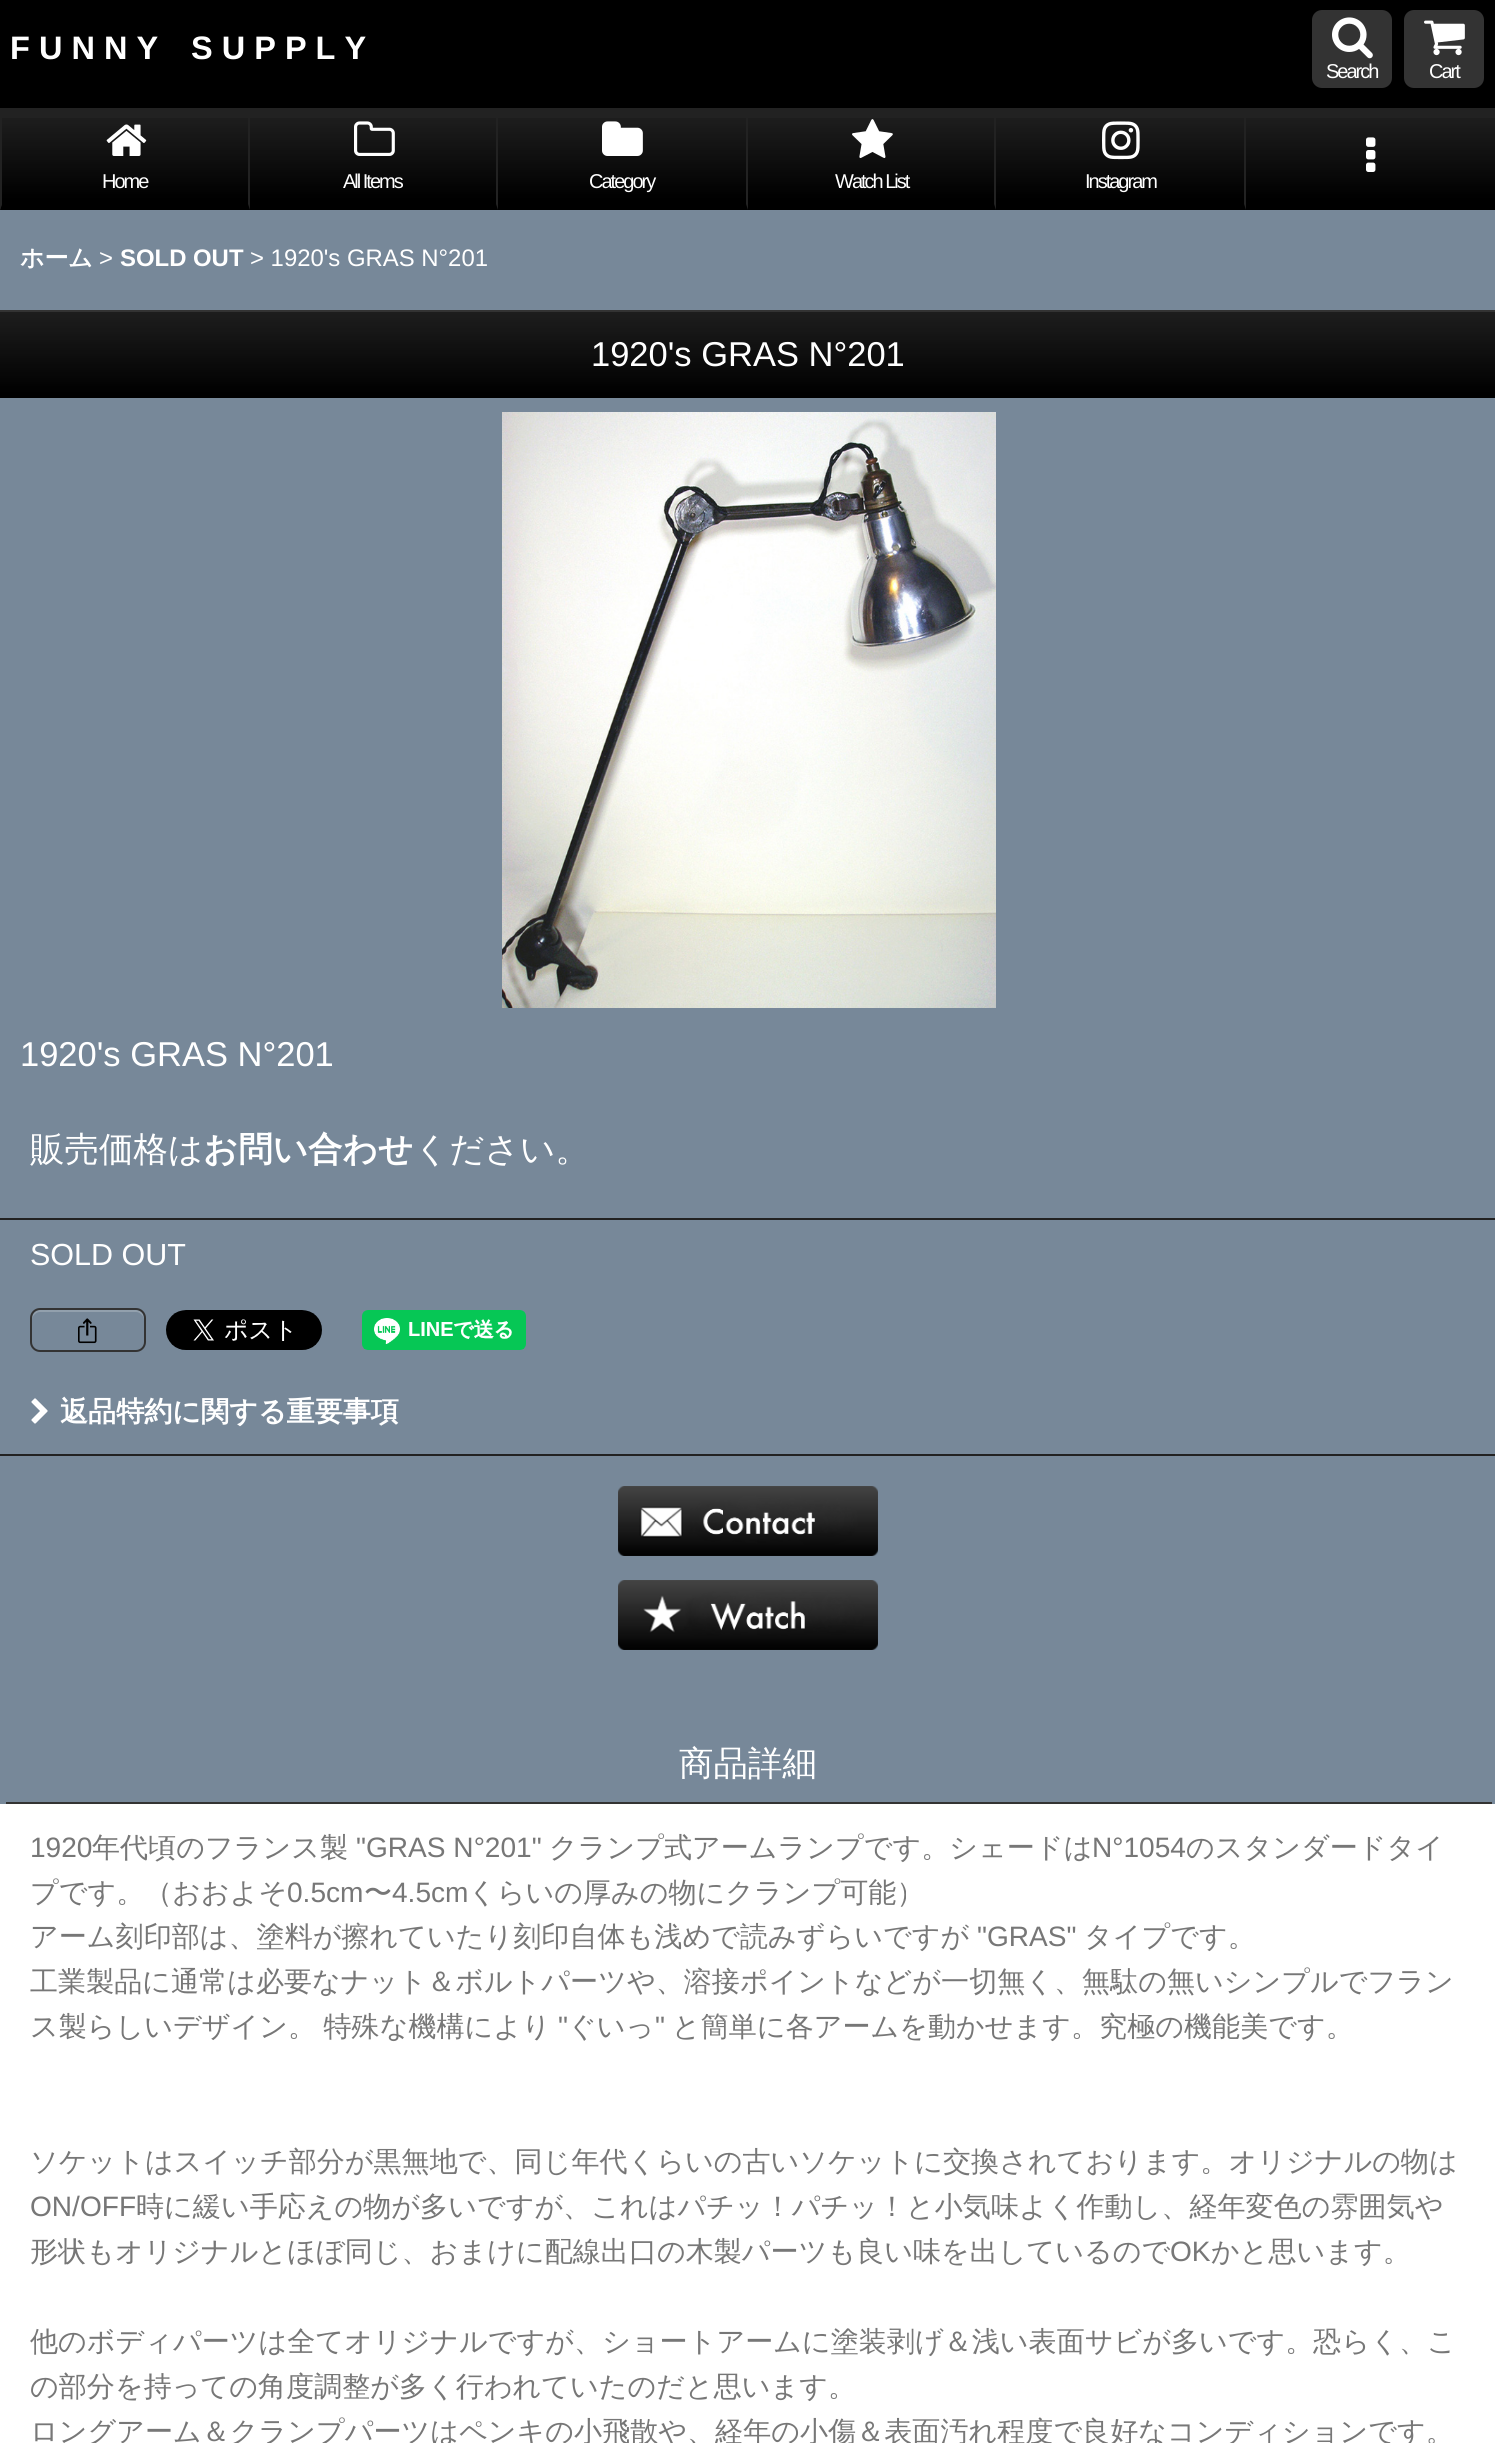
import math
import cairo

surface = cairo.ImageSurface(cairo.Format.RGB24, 1495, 2443)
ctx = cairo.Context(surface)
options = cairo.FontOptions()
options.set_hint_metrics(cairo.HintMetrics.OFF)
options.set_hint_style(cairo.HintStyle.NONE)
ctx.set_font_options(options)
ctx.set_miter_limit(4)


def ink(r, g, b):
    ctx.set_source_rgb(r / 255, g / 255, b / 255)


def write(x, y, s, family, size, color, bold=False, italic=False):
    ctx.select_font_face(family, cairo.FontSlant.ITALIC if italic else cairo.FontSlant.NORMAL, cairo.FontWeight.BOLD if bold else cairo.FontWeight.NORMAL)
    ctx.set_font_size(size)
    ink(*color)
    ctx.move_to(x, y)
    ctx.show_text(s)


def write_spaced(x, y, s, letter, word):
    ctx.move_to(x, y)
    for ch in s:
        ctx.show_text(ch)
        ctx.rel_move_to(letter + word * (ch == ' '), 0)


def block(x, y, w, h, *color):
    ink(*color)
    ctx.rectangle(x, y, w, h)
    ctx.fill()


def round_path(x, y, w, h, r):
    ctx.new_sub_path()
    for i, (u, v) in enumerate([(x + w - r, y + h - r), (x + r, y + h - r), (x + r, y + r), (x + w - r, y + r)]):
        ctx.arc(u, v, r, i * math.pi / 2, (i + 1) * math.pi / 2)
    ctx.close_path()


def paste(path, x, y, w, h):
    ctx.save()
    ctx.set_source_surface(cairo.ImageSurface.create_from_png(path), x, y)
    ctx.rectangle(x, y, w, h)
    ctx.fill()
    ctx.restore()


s1 = dict(family="Liberation Sans", size=32.5, color=(255, 255, 255), bold=True)
s2 = dict(family="WenQuanYi Zen Hei", size=23.9, color=(255, 255, 255), bold=True)
s3 = dict(family="Liberation Sans", size=23.9, color=(255, 255, 255))
s4 = dict(family="Liberation Sans", size=23.9, color=(255, 255, 255), bold=True)
s5 = dict(family="Liberation Sans", size=34.5, color=(255, 255, 255))
s6 = dict(family="WenQuanYi Zen Hei Medium", size=34.5, color=(255, 255, 255))
s7 = dict(family="WenQuanYi Zen Hei", size=34.5, color=(255, 255, 255), bold=True)
s8 = dict(family="Liberation Sans", size=30.5, color=(255, 255, 255))
s9 = dict(family="WenQuanYi Zen Hei", size=28.08, color=(255, 255, 255), bold=True)
s10 = dict(family="Liberation Sans", size=28.08, color=(119, 119, 119))
s11 = dict(family="WenQuanYi Zen Hei Medium", size=28.08, color=(119, 119, 119))

ink(119, 136, 153)
ctx.paint()
block(0, 0, 1495, 108, 0, 0, 0)
write(10, 59, "F U N N Y", **s1)
write(191, 59, "S U P P L Y", **s1)
ink(51, 51, 51)
round_path(1312, 10, 80, 78, 10)
ctx.fill()
paste("pic1.png", 1332, 17, 41, 42)
ctx.select_font_face("Liberation Sans")
ctx.set_font_size(20)
ink(255, 255, 255)
write_spaced(1326, 78, "Search", -2, 0)
ink(51, 51, 51)
round_path(1404, 10, 80, 78, 10)
ctx.fill()
paste("pic2.png", 1424, 20, 41, 36)
ink(255, 255, 255)
write_spaced(1429, 78, "Cart", -2, 0)
block(0, 108, 1246, 102, 34, 34, 34)
paste("pic3.png", 2, 118, 246, 86)
ink(0, 0, 0)
ctx.new_path()
ctx.move_to(250, 210)
ctx.line_to(0, 210)
ctx.line_to(2, 204)
ctx.line_to(248, 204)
ctx.close_path()
ctx.fill()
ink(34, 34, 34)
ctx.new_path()
ctx.move_to(0, 210)
ctx.line_to(0, 108)
ctx.line_to(2, 108)
ctx.line_to(2, 204)
ctx.close_path()
ctx.fill()
paste("pic4.png", 106, 124, 41, 32)
ink(255, 255, 255)
write_spaced(102, 188, "Home", -2, 0)
paste("pic3.png", 250, 118, 246, 86)
ink(0, 0, 0)
ctx.new_path()
ctx.move_to(498, 210)
ctx.line_to(250, 210)
ctx.line_to(250, 204)
ctx.line_to(496, 204)
ctx.close_path()
ctx.fill()
paste("pic5.png", 354, 121, 41, 35)
ink(255, 255, 255)
write_spaced(343, 188, "All Items", -2, 0)
paste("pic6.png", 498, 118, 248, 86)
ink(0, 0, 0)
ctx.new_path()
ctx.move_to(748, 210)
ctx.line_to(498, 210)
ctx.line_to(498, 204)
ctx.line_to(746, 204)
ctx.close_path()
ctx.fill()
paste("pic7.png", 602, 121, 41, 35)
ink(255, 255, 255)
write_spaced(589, 188, "Category", -2, 0)
paste("pic3.png", 748, 118, 246, 86)
ink(0, 0, 0)
ctx.new_path()
ctx.move_to(996, 210)
ctx.line_to(748, 210)
ctx.line_to(748, 204)
ctx.line_to(994, 204)
ctx.close_path()
ctx.fill()
paste("pic8.png", 852, 119, 41, 39)
ink(255, 255, 255)
write_spaced(835, 188, "Watch List", -2, 0)
paste("pic6.png", 996, 118, 248, 86)
ink(0, 0, 0)
ctx.new_path()
ctx.move_to(1246, 210)
ctx.line_to(996, 210)
ctx.line_to(996, 204)
ctx.line_to(1244, 204)
ctx.close_path()
ctx.fill()
paste("pic9.png", 1102, 121, 38, 39)
ink(255, 255, 255)
write_spaced(1085, 188, "Instagram", -2, 0)
block(1246, 108, 249, 10, 34, 34, 34)
paste("pic10.png", 1246, 118, 249, 86)
block(1246, 204, 249, 6, 0, 0, 0)
paste("pic11.png", 1366, 137, 10, 35)
write(20, 266, "ホーム", **s2)
write(99, 266, ">", **s3)
write(120, 266, "SOLD OUT", **s4)
write(250, 266, "> 1920's GRAS N°201", **s3)
paste("pic12.png", 0, 312, 1495, 86)
block(0, 310, 1495, 2, 51, 51, 51)
write(591, 366, "1920's GRAS N°201", **s5)
paste("pic13.png", 502, 412, 494, 596)
write(20, 1066, "1920's GRAS N°201", **s5)
block(0, 1218, 1495, 2, 34, 34, 34)
write(30, 1161, "販売価格は", **s6)
write(203, 1161, "お問い合わせ", **s7)
write(414, 1161, "ください。", **s6)
write(30, 1265, "SOLD OUT", **s8)
ink(146, 160, 173)
ctx.new_path()
ctx.move_to(40, 1312)
ctx.line_to(136, 1312)
ctx.curve_to(140, 1312, 144, 1316, 144, 1320)
ctx.curve_to(144, 1306, 130, 1310, 120, 1310)
ctx.line_to(56, 1310)
ctx.curve_to(46, 1310, 32, 1306, 32, 1320)
ctx.curve_to(32, 1316, 36, 1312, 40, 1312)
ctx.close_path()
ctx.fill()
round_path(31, 1309, 114, 42, 9)
ink(51, 51, 51)
ctx.stroke()
paste("pic14.png", 78, 1318, 19, 26)
paste("pic15.png", 166, 1310, 156, 40)
paste("pic16.png", 362, 1310, 164, 40)
block(0, 1454, 1495, 2, 34, 34, 34)
paste("pic17.png", 31, 1398, 17, 26)
write(60, 1421, "返品特約に関する重要事項", **s9)
paste("pic18.png", 618, 1486, 260, 70)
paste("pic19.png", 618, 1580, 260, 70)
block(6, 1802, 1486, 2, 51, 51, 51)
write(679, 1775, "商品詳細", **s6)
block(0, 1804, 1495, 639, 255, 255, 255)
write(30, 1857, "1920", **s10)
write(92, 1857, "年代頃のフランス製", **s11)
write(356, 1857, "\"GRAS N°201\"", **s10)
write(549, 1857, "クランプ式アームランプです。シェードは", **s11)
write(1092, 1857, "N°1054", **s10)
write(1186, 1857, "のスタンダードタイ", **s11)
write(30, 1902, "プです。（おおよそ", **s11)
write(287, 1902, "0.5cm", **s10)
write(364, 1902, "〜", **s11)
write(392, 1902, "4.5cm", **s10)
write(468, 1902, "くらいの厚みの物にクランプ可能）", **s11)
write(30, 1946, "アーム刻印部は、塗料が擦れていたり刻印自体も浅めで読みずらいですが", **s11)
write(977, 1946, "\"GRAS\"", **s10)
write(1084, 1946, "タイプです。", **s11)
write(30, 1991, "工業製品に通常は必要なナット＆ボルトパーツや、溶接ポイントなどが一切無く、無駄の無いシンプルでフラン", **s11)
write_spaced(30, 2036, "ス製らしいデザイン。 特殊な機構により", 0, -1)
write(558, 2036, "\"", **s10)
write(568, 2036, "ぐいっ", **s11)
write(655, 2036, "\"", **s10)
write(672, 2036, "と簡単に各アームを動かせます。究極の機能美です。", **s11)
write(30, 2171, "ソケットはスイッチ部分が黒無地で、同じ年代くらいの古いソケットに交換されております。オリジナルの物は", **s11)
write(30, 2216, "ON/OFF", **s10)
write(136, 2216, "時に緩い手応えの物が多いですが、これはパチッ！パチッ！と小気味よく作動し、経年変色の雰囲気や", **s11)
write(30, 2261, "形状もオリジナルとほぼ同じ、おまけに配線出口の木製パーツも良い味を出しているので", **s11)
write(1170, 2261, "OK", **s10)
write(1211, 2261, "かと思います。", **s11)
write(30, 2351, "他のボディパーツは全てオリジナルですが、ショートアームに塗装剥げ＆浅い表面サビが多いです。恐らく、こ", **s11)
write(30, 2396, "の部分を持っての角度調整が多く行われていたのだと思います。", **s11)
write(30, 2441, "ロングアーム＆クランプパーツはペンキの小飛散や、経年の小傷＆表面汚れ程度で良好なコンディションです。", **s11)
surface.write_to_png("screenshot.png")
